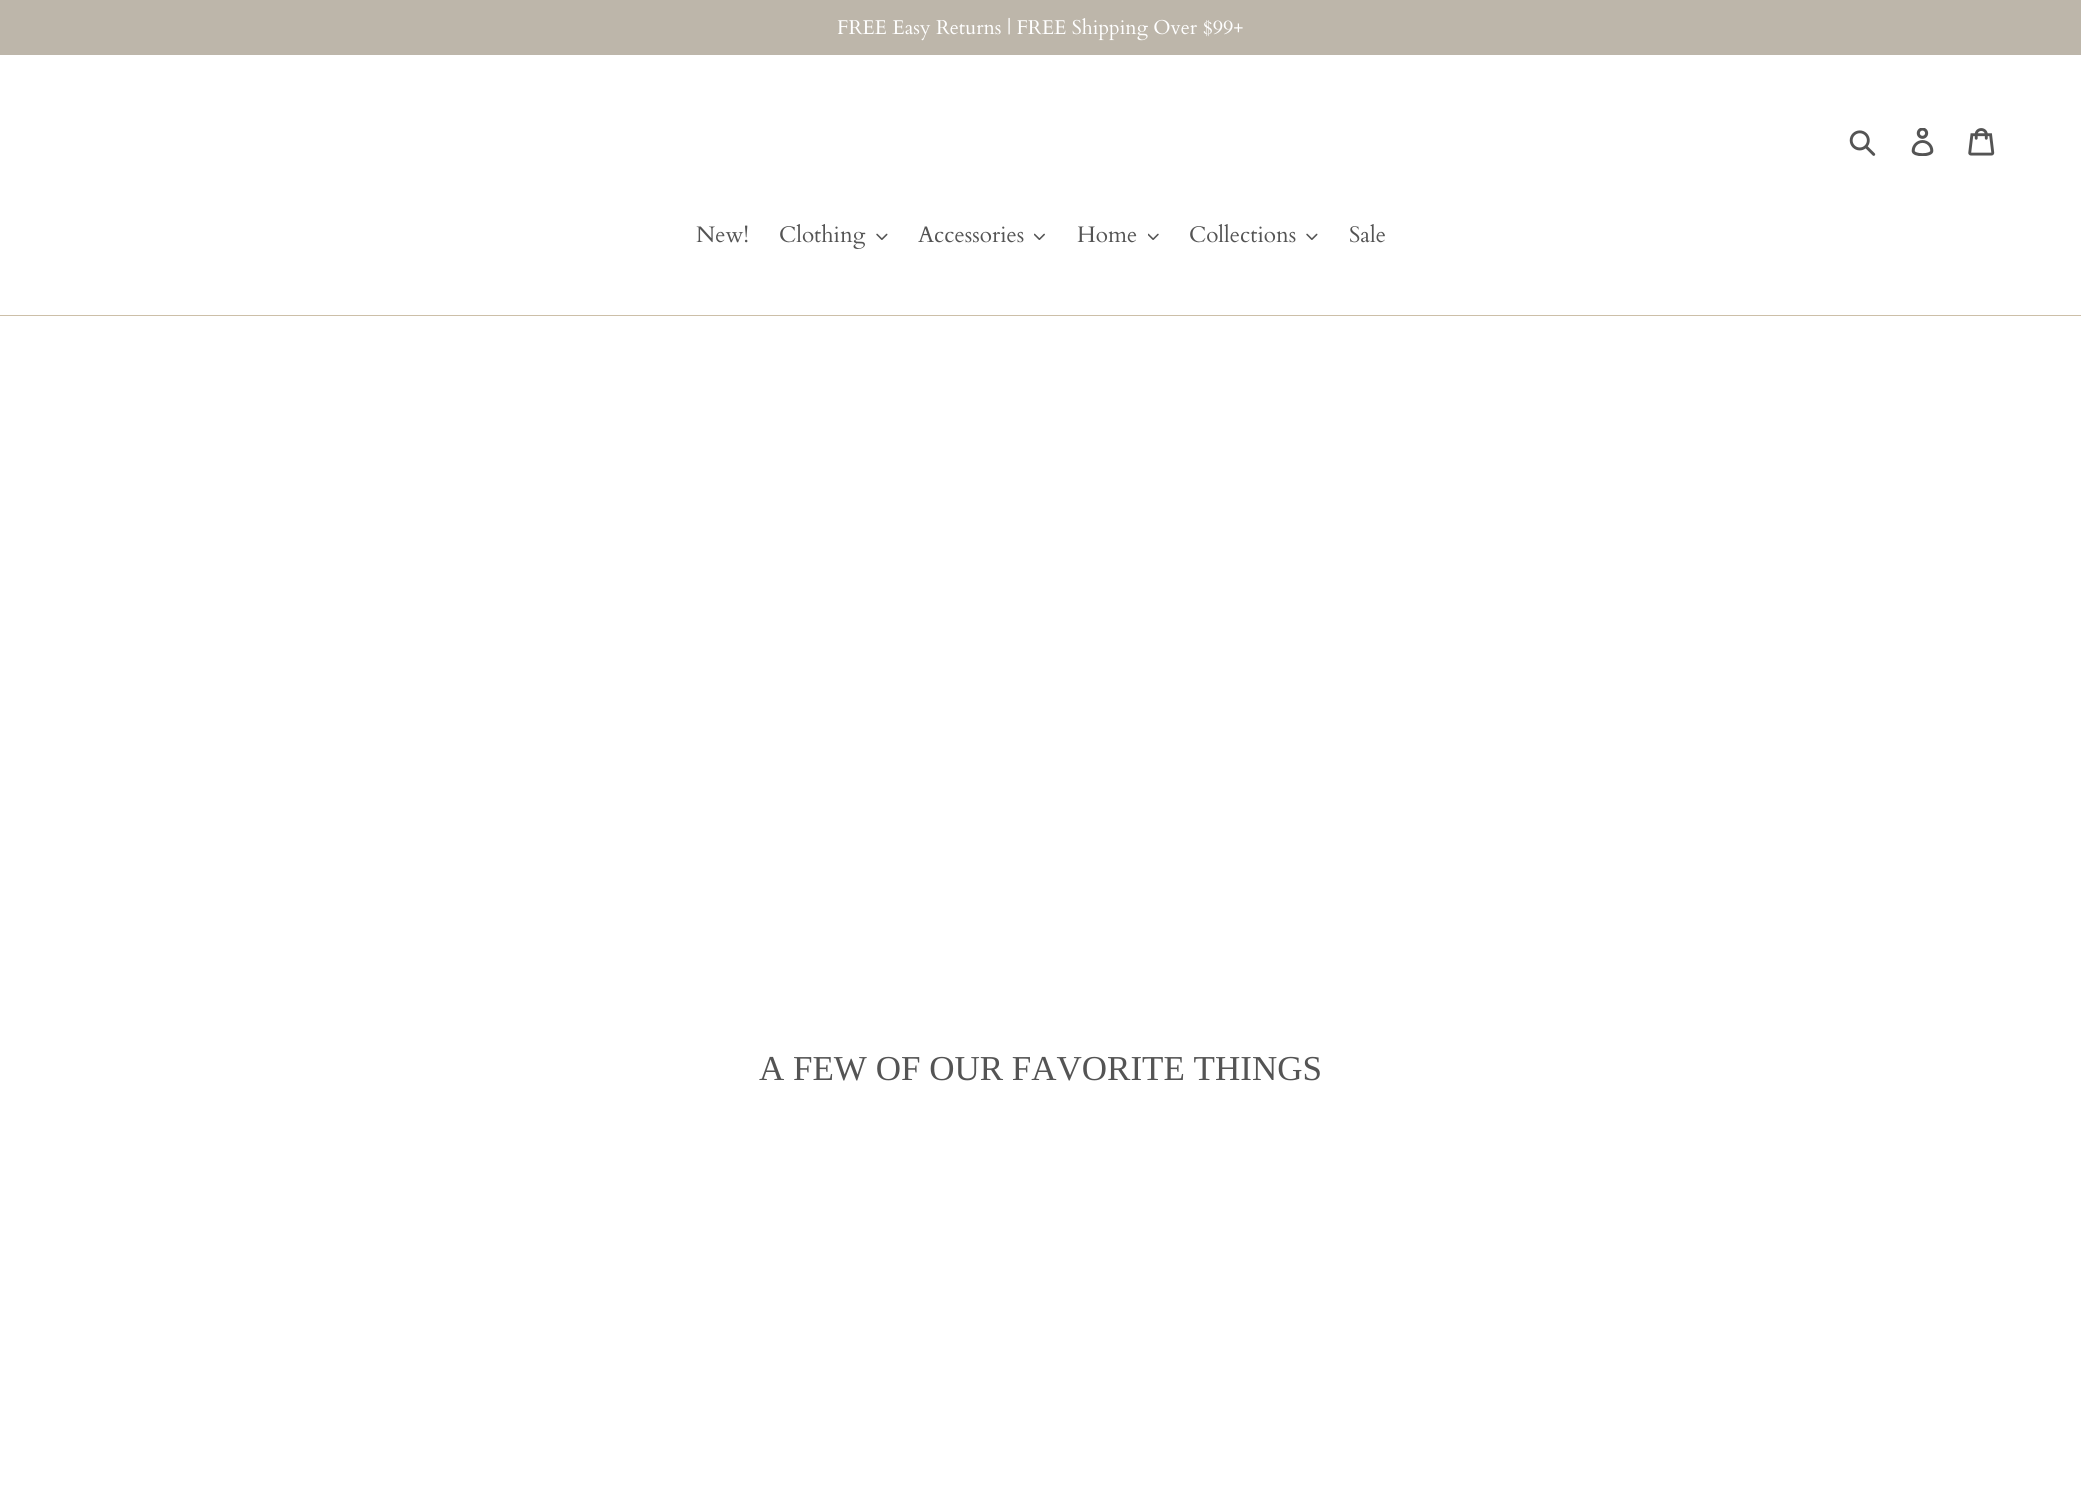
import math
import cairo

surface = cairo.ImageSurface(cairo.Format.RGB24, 2081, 1502)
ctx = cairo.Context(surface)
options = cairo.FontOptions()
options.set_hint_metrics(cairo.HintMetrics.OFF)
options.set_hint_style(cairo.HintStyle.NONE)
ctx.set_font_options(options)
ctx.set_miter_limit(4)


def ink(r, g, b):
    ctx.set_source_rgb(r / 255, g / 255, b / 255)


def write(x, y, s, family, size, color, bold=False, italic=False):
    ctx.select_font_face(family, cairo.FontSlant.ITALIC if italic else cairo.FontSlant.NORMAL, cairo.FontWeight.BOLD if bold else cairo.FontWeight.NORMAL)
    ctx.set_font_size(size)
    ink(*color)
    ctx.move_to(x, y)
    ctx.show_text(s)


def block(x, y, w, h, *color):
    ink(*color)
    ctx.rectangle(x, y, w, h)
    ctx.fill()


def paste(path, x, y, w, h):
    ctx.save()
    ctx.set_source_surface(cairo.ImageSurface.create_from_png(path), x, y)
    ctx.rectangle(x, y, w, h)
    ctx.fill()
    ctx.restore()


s1 = dict(family="Cardo", size=20, color=(255, 255, 255))
s2 = dict(family="Cardo", size=22.5, color=(84, 84, 84))
s3 = dict(family="Liberation Serif", size=35, color=(84, 84, 84))

ink(255, 255, 255)
ctx.paint()
block(0, 0, 2081, 55, 189, 182, 170)
write(837, 34, "FREE Easy Returns | FREE Shipping Over $99+", **s1)
paste("pic1.png", 1849, 130, 27, 26)
paste("pic2.png", 1911, 128, 23, 28)
paste("pic3.png", 1968, 128, 27, 28)
block(0, 315, 2081, 1, 204, 191, 168)
write(696, 242, "New!", **s2)
write(779, 242, "Clothing", **s2)
paste("pic4.png", 876, 233, 12, 7)
write(918, 242, "Accessories", **s2)
paste("pic5.png", 1034, 233, 11, 7)
write(1077, 242, "Home", **s2)
paste("pic6.png", 1148, 233, 11, 7)
write(1189, 242, "Collections", **s2)
paste("pic4.png", 1306, 233, 12, 7)
write(1349, 242, "Sale", **s2)
write(759, 1080, "A FEW OF OUR FAVORITE THINGS", **s3)
surface.write_to_png("screenshot.png")
